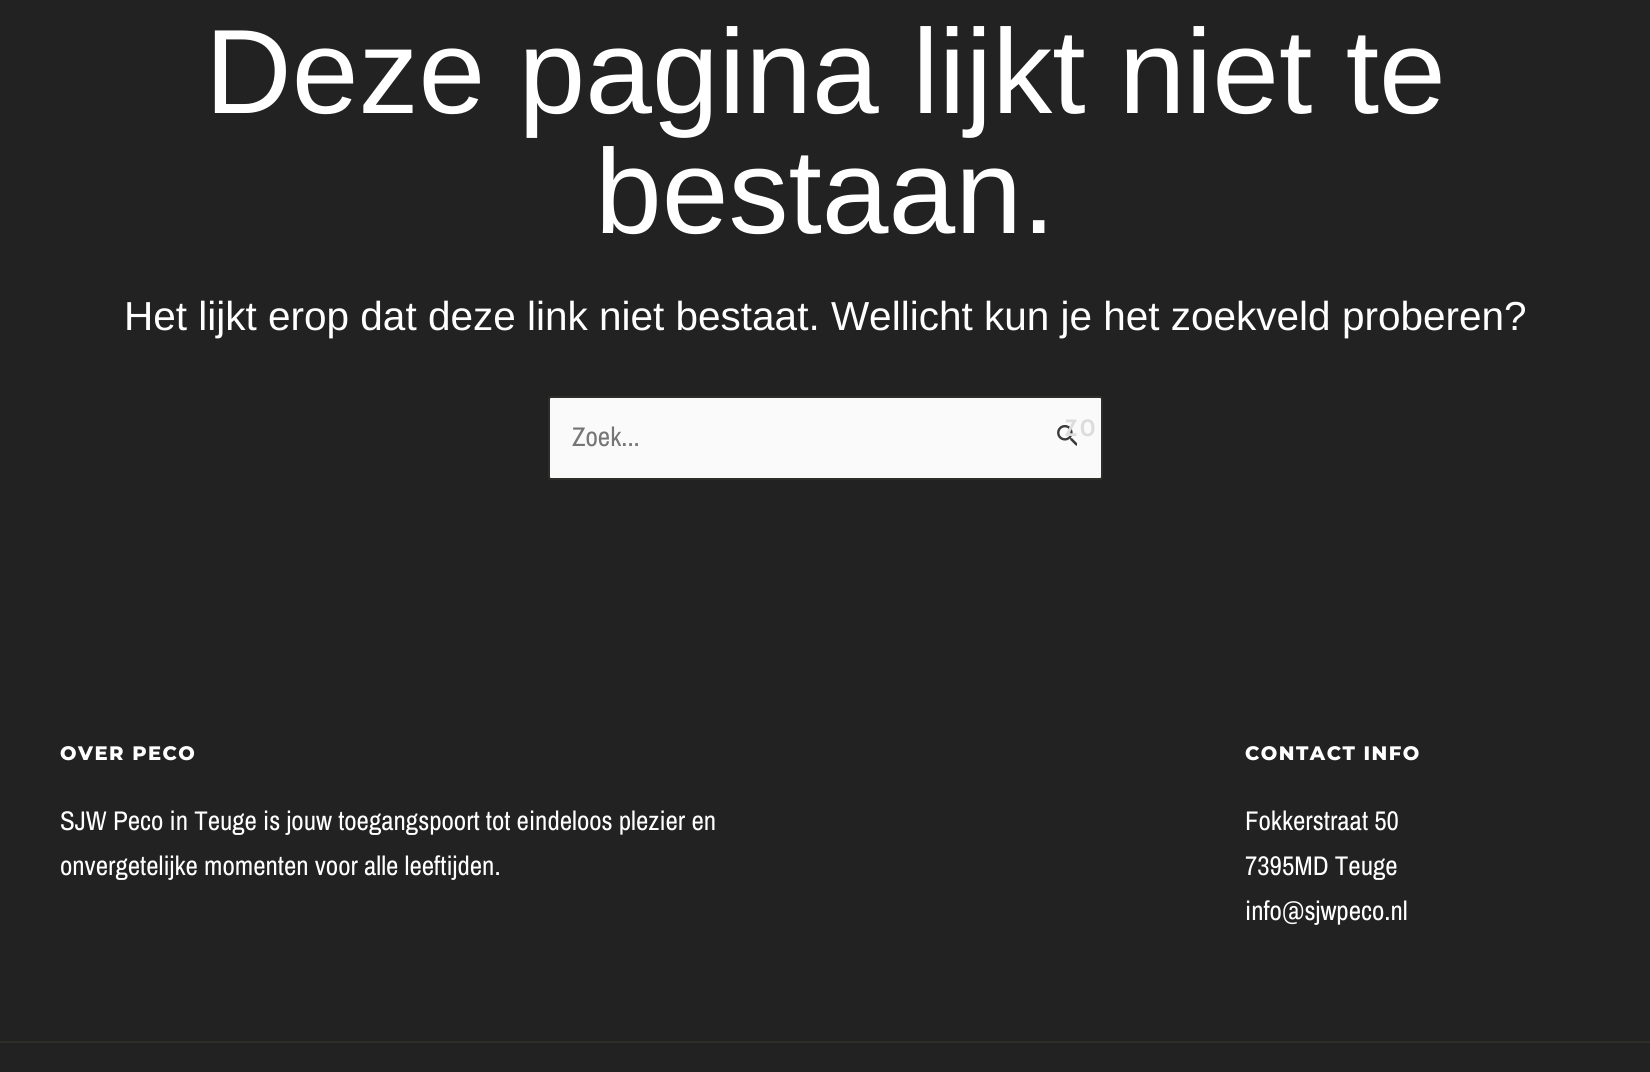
import math
import cairo

surface = cairo.ImageSurface(cairo.Format.RGB24, 1650, 1072)
ctx = cairo.Context(surface)
options = cairo.FontOptions()
options.set_hint_metrics(cairo.HintMetrics.OFF)
options.set_hint_style(cairo.HintStyle.NONE)
ctx.set_font_options(options)
ctx.set_miter_limit(4)


def ink(r, g, b):
    ctx.set_source_rgb(r / 255, g / 255, b / 255)


def write(x, y, s, family, size, color, bold=False, italic=False):
    ctx.select_font_face(family, cairo.FontSlant.ITALIC if italic else cairo.FontSlant.NORMAL, cairo.FontWeight.BOLD if bold else cairo.FontWeight.NORMAL)
    ctx.set_font_size(size)
    ink(*color)
    ctx.move_to(x, y)
    ctx.show_text(s)


def write_spaced(x, y, s, letter, word):
    ctx.move_to(x, y)
    for ch in s:
        ctx.show_text(ch)
        ctx.rel_move_to(letter + word * (ch == ' '), 0)


def block(x, y, w, h, *color):
    ink(*color)
    ctx.rectangle(x, y, w, h)
    ctx.fill()


def round_path(x, y, w, h, r):
    ctx.new_sub_path()
    for i, (u, v) in enumerate([(x + w - r, y + h - r), (x + r, y + h - r), (x + r, y + r), (x + w - r, y + r)]):
        ctx.arc(u, v, r, i * math.pi / 2, (i + 1) * math.pi / 2)
    ctx.close_path()


def paste(path, x, y, w, h):
    ctx.save()
    ctx.set_source_surface(cairo.ImageSurface.create_from_png(path), x, y)
    ctx.rectangle(x, y, w, h)
    ctx.fill()
    ctx.restore()


s1 = dict(family="Liberation Sans", size=120, color=(255, 255, 255))
s2 = dict(family="Liberation Sans", size=40.5, color=(255, 255, 255))
s3 = dict(family="Archivo Narrow", size=27, color=(117, 117, 117))
s4 = dict(family="Archivo Narrow", size=27, color=(255, 255, 255))

ink(34, 34, 34)
ctx.paint()
write(205, 113, "Deze pagina lijkt niet te", **s1)
write(595, 233, "bestaan.", **s1)
write(124, 330, "Het lijkt erop dat deze link niet bestaat. Wellicht kun je het zoekveld proberen?", **s2)
ink(250, 250, 250)
round_path(549, 397, 553, 82, 2)
ctx.fill_preserve()
ink(46, 45, 42)
ctx.stroke()
write(572, 446, "Zoek...", **s3)
paste("pic1.png", 1057, 425, 20, 21)
ctx.select_font_face("Archivo Narrow", cairo.FontSlant.NORMAL, cairo.FontWeight.BOLD)
ctx.set_font_size(24)
ink(220, 220, 220)
write_spaced(1065, 436, "ZO", 3, 0)
ctx.select_font_face("Montserrat Thin")
ctx.set_font_size(19.5)
ink(255, 255, 255)
write_spaced(60, 760, "OVER PECO", 1.5, 0)
write(60, 830, "SJW Peco in Teuge is jouw toegangspoort tot eindeloos plezier en", **s4)
write(60, 875, "onvergetelijke momenten voor alle leeftijden.", **s4)
ctx.select_font_face("Montserrat Thin")
ctx.set_font_size(19.5)
write_spaced(1245, 760, "CONTACT INFO", 1.5, 0)
write(1245, 830, "Fokkerstraat 50", **s4)
write(1245, 875, "7395MD Teuge", **s4)
write(1245, 920, "info@sjwpeco.nl", **s4)
block(0, 1041, 1650, 2, 46, 45, 42)
surface.write_to_png("screenshot.png")
